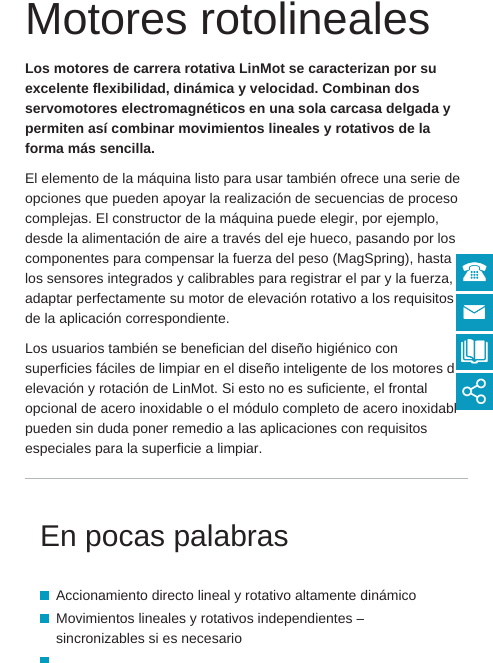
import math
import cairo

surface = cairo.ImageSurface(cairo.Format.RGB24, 493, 663)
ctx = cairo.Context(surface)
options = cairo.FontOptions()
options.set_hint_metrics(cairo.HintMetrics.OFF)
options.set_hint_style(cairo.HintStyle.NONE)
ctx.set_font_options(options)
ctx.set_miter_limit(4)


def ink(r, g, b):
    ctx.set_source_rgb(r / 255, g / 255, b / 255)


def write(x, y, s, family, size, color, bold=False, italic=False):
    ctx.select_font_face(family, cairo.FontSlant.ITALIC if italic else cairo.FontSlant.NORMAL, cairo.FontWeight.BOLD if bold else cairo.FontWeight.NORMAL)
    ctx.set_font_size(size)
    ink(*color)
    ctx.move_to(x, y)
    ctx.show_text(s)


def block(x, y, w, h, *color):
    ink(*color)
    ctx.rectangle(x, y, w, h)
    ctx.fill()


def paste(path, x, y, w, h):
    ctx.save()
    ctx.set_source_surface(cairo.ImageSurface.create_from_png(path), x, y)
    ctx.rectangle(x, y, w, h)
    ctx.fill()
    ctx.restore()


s1 = dict(family="Liberation Sans", size=45, color=(36, 31, 32))
s2 = dict(family="Liberation Sans", size=14, color=(36, 31, 32), bold=True)
s3 = dict(family="Liberation Sans", size=14, color=(36, 31, 32))
s4 = dict(family="Liberation Sans", size=30, color=(36, 31, 32))

ink(255, 255, 255)
ctx.paint()
write(25, 34, "Motores rotolineales", **s1)
write(25, 73, "Los motores de carrera rotativa LinMot se caracterizan por su", **s2)
write(25, 93, "excelente flexibilidad, dinámica y velocidad. Combinan dos", **s2)
write(25, 113, "servomotores electromagnéticos en una sola carcasa delgada y", **s2)
write(25, 133, "permiten así combinar movimientos lineales y rotativos de la", **s2)
write(25, 153, "forma más sencilla.", **s2)
write(25, 183, "El elemento de la máquina listo para usar también ofrece una serie de", **s3)
write(25, 203, "opciones que pueden apoyar la realización de secuencias de proceso", **s3)
write(25, 223, "complejas. El constructor de la máquina puede elegir, por ejemplo,", **s3)
write(25, 243, "desde la alimentación de aire a través del eje hueco, pasando por los", **s3)
write(25, 263, "componentes para compensar la fuerza del peso (MagSpring), hasta", **s3)
write(25, 283, "los sensores integrados y calibrables para registrar el par y la fuerza,", **s3)
write(25, 303, "adaptar perfectamente su motor de elevación rotativo a los requisitos", **s3)
write(25, 323, "de la aplicación correspondiente.", **s3)
write(25, 353, "Los usuarios también se benefician del diseño higiénico con", **s3)
write(25, 373, "superficies fáciles de limpiar en el diseño inteligente de los motores d", **s3)
write(25, 393, "elevación y rotación de LinMot. Si esto no es suficiente, el frontal", **s3)
write(25, 413, "opcional de acero inoxidable o el módulo completo de acero inoxidabl", **s3)
write(25, 433, "pueden sin duda poner remedio a las aplicaciones con requisitos", **s3)
write(25, 453, "especiales para la superficie a limpiar.", **s3)
block(25, 478, 443, 1, 182, 183, 184)
write(40, 546, "En pocas palabras", **s4)
block(40, 591, 9, 9, 3, 155, 192)
write(56, 600, "Accionamiento directo lineal y rotativo altamente dinámico", **s3)
block(40, 614, 9, 9, 3, 155, 192)
write(56, 623, "Movimientos lineales y rotativos independientes –", **s3)
write(56, 643, "sincronizables si es necesario", **s3)
block(40, 657, 9, 6, 3, 155, 192)
block(456, 254, 37, 37, 11, 154, 191)
paste("pic1.png", 462, 262, 25, 20)
block(456, 294, 37, 37, 11, 154, 191)
paste("pic2.png", 463, 305, 22, 14)
block(456, 334, 37, 36, 11, 154, 191)
paste("pic3.png", 461, 339, 27, 25)
block(456, 373, 37, 37, 11, 154, 191)
paste("pic4.png", 462, 378, 24, 26)
surface.write_to_png("screenshot.png")
